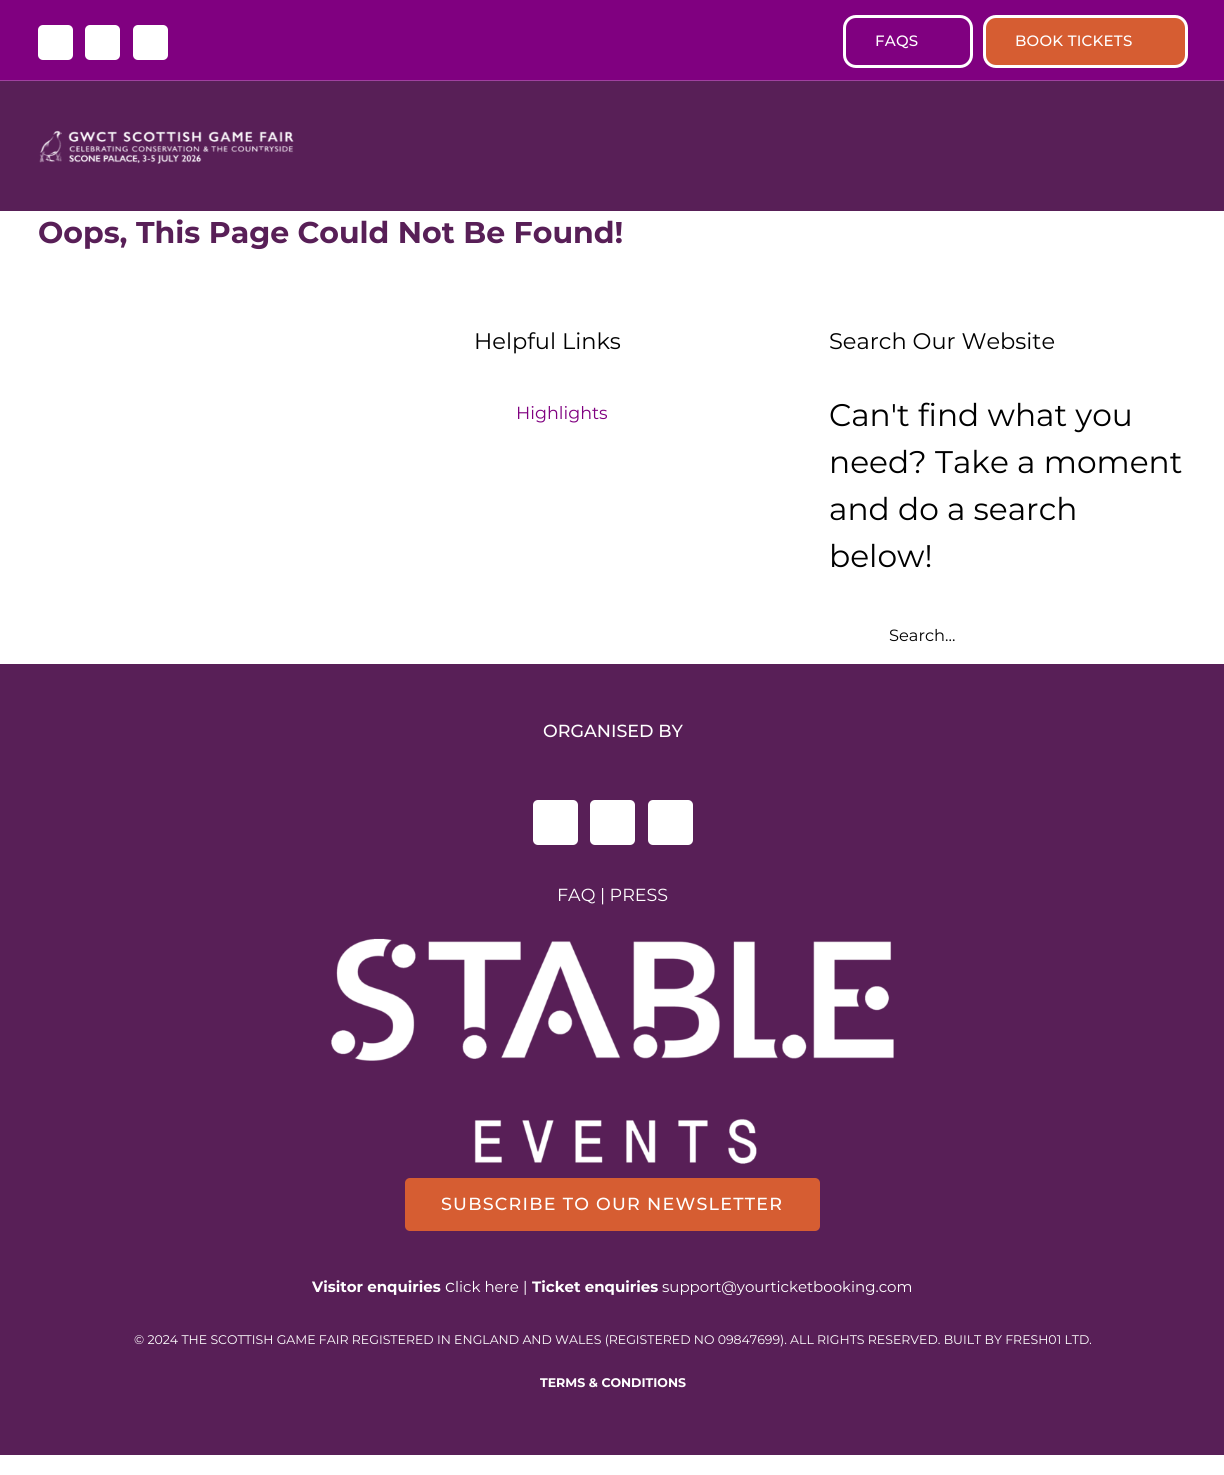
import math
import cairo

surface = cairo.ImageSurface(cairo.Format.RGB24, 1224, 1475)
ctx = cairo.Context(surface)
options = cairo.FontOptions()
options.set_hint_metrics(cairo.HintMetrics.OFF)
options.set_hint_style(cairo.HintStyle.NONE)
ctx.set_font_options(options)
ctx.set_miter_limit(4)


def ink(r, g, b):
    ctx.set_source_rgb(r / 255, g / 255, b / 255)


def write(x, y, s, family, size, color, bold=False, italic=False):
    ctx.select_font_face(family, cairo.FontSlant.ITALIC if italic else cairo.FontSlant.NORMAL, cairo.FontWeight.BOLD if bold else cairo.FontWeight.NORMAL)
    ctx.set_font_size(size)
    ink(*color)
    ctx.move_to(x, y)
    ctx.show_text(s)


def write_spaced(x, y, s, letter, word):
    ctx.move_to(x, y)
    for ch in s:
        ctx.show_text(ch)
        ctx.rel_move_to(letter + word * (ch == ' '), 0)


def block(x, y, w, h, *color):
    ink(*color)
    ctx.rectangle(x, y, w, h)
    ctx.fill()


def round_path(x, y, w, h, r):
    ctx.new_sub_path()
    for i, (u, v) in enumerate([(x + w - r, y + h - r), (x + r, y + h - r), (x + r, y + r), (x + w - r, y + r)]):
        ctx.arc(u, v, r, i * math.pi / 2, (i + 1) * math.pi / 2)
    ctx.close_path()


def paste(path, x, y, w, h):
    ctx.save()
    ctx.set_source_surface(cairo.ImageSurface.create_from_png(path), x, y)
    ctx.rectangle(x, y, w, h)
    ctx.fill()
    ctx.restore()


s1 = dict(family="Montserrat", size=30, color=(88, 31, 87), bold=True)
s2 = dict(family="Montserrat", size=22.5, color=(0, 0, 0))
s3 = dict(family="Montserrat", size=17.5, color=(128, 0, 128))
s4 = dict(family="Montserrat", size=31.25, color=(0, 0, 0))
s5 = dict(family="Montserrat", size=16.25, color=(0, 0, 0))
s6 = dict(family="Montserrat Medium", size=17.5, color=(255, 255, 255))
s7 = dict(family="Montserrat", size=17.5, color=(255, 255, 255))
s8 = dict(family="Montserrat", size=15, color=(255, 255, 255), bold=True)
s9 = dict(family="Montserrat", size=15, color=(255, 255, 255))
s10 = dict(family="Montserrat", size=12.5, color=(255, 255, 255))
s11 = dict(family="Montserrat", size=12.5, color=(255, 255, 255), bold=True)

ink(255, 255, 255)
ctx.paint()
block(0, 0, 1224, 80, 128, 0, 128)
block(0, 80, 1224, 1, 160, 64, 160)
ink(255, 255, 255)
round_path(38, 25, 35, 35, 5)
ctx.fill()
round_path(85, 25, 35, 35, 5)
ctx.fill()
round_path(133, 25, 35, 35, 5)
ctx.fill()
round_path(844.5, 16.5, 127, 50, 11.5)
ctx.set_line_width(3)
ctx.stroke()
ctx.select_font_face("Montserrat Medium")
ctx.set_font_size(15)
write_spaced(875, 46, "FAQS", 0.25, 0)
ink(214, 93, 50)
round_path(984.5, 16.5, 202, 50, 11.5)
ctx.fill_preserve()
ink(255, 255, 255)
ctx.stroke()
write_spaced(1015, 46, "BOOK TICKETS", 0.25, 0)
block(0, 81, 1224, 130, 88, 31, 87)
paste("pic1.png", 39, 130, 255, 34)
write(38, 243, "Oops, This Page Could Not Be Found!", **s1)
write(474, 349, "Helpful Links", **s2)
write(516, 419, "Highlights", **s3)
write(829, 349, "Search Our Website", **s2)
write(829, 426, "Can't find what you", **s4)
write(829, 473, "need? Take a moment", **s4)
write(829, 520, "and do a search", **s4)
write(829, 567, "below!", **s4)
write(889, 641, "Search...", **s5)
block(0, 664, 1224, 791, 88, 31, 87)
write(543, 737, "ORGANISED BY", **s6)
round_path(533, 800, 45, 45, 5)
ctx.fill()
round_path(590, 800, 45, 45, 5)
ctx.fill()
round_path(648, 800, 45, 45, 5)
ctx.fill()
write(557, 901, "FAQ | PRESS", **s7)
paste("pic2.png", 331, 938, 563, 226)
ink(214, 93, 50)
round_path(405, 1178, 415, 53, 5)
ctx.fill()
ctx.select_font_face("Montserrat Medium")
ink(255, 255, 255)
write_spaced(441, 1210, "SUBSCRIBE TO OUR NEWSLETTER", 1.25, 0)
write(312, 1292, "Visitor enquiries", **s8)
write(445, 1292, "c", **s7)
write(455, 1292, "lick here", **s9)
write(523, 1292, "|", **s9)
write(532, 1292, "Ticket enquiries", **s8)
write(662, 1292, "support@yourticketbooking.com", **s9)
write(134, 1344, "© 2024 THE SCOTTISH GAME FAIR REGISTERED IN ENGLAND AND WALES (REGISTERED NO 09847699). ALL RIGHTS RESERVED. BUILT BY FRESH01 LTD.", **s10)
write(540, 1387, "TERMS & CONDITIONS", **s11)
surface.write_to_png("screenshot.png")
